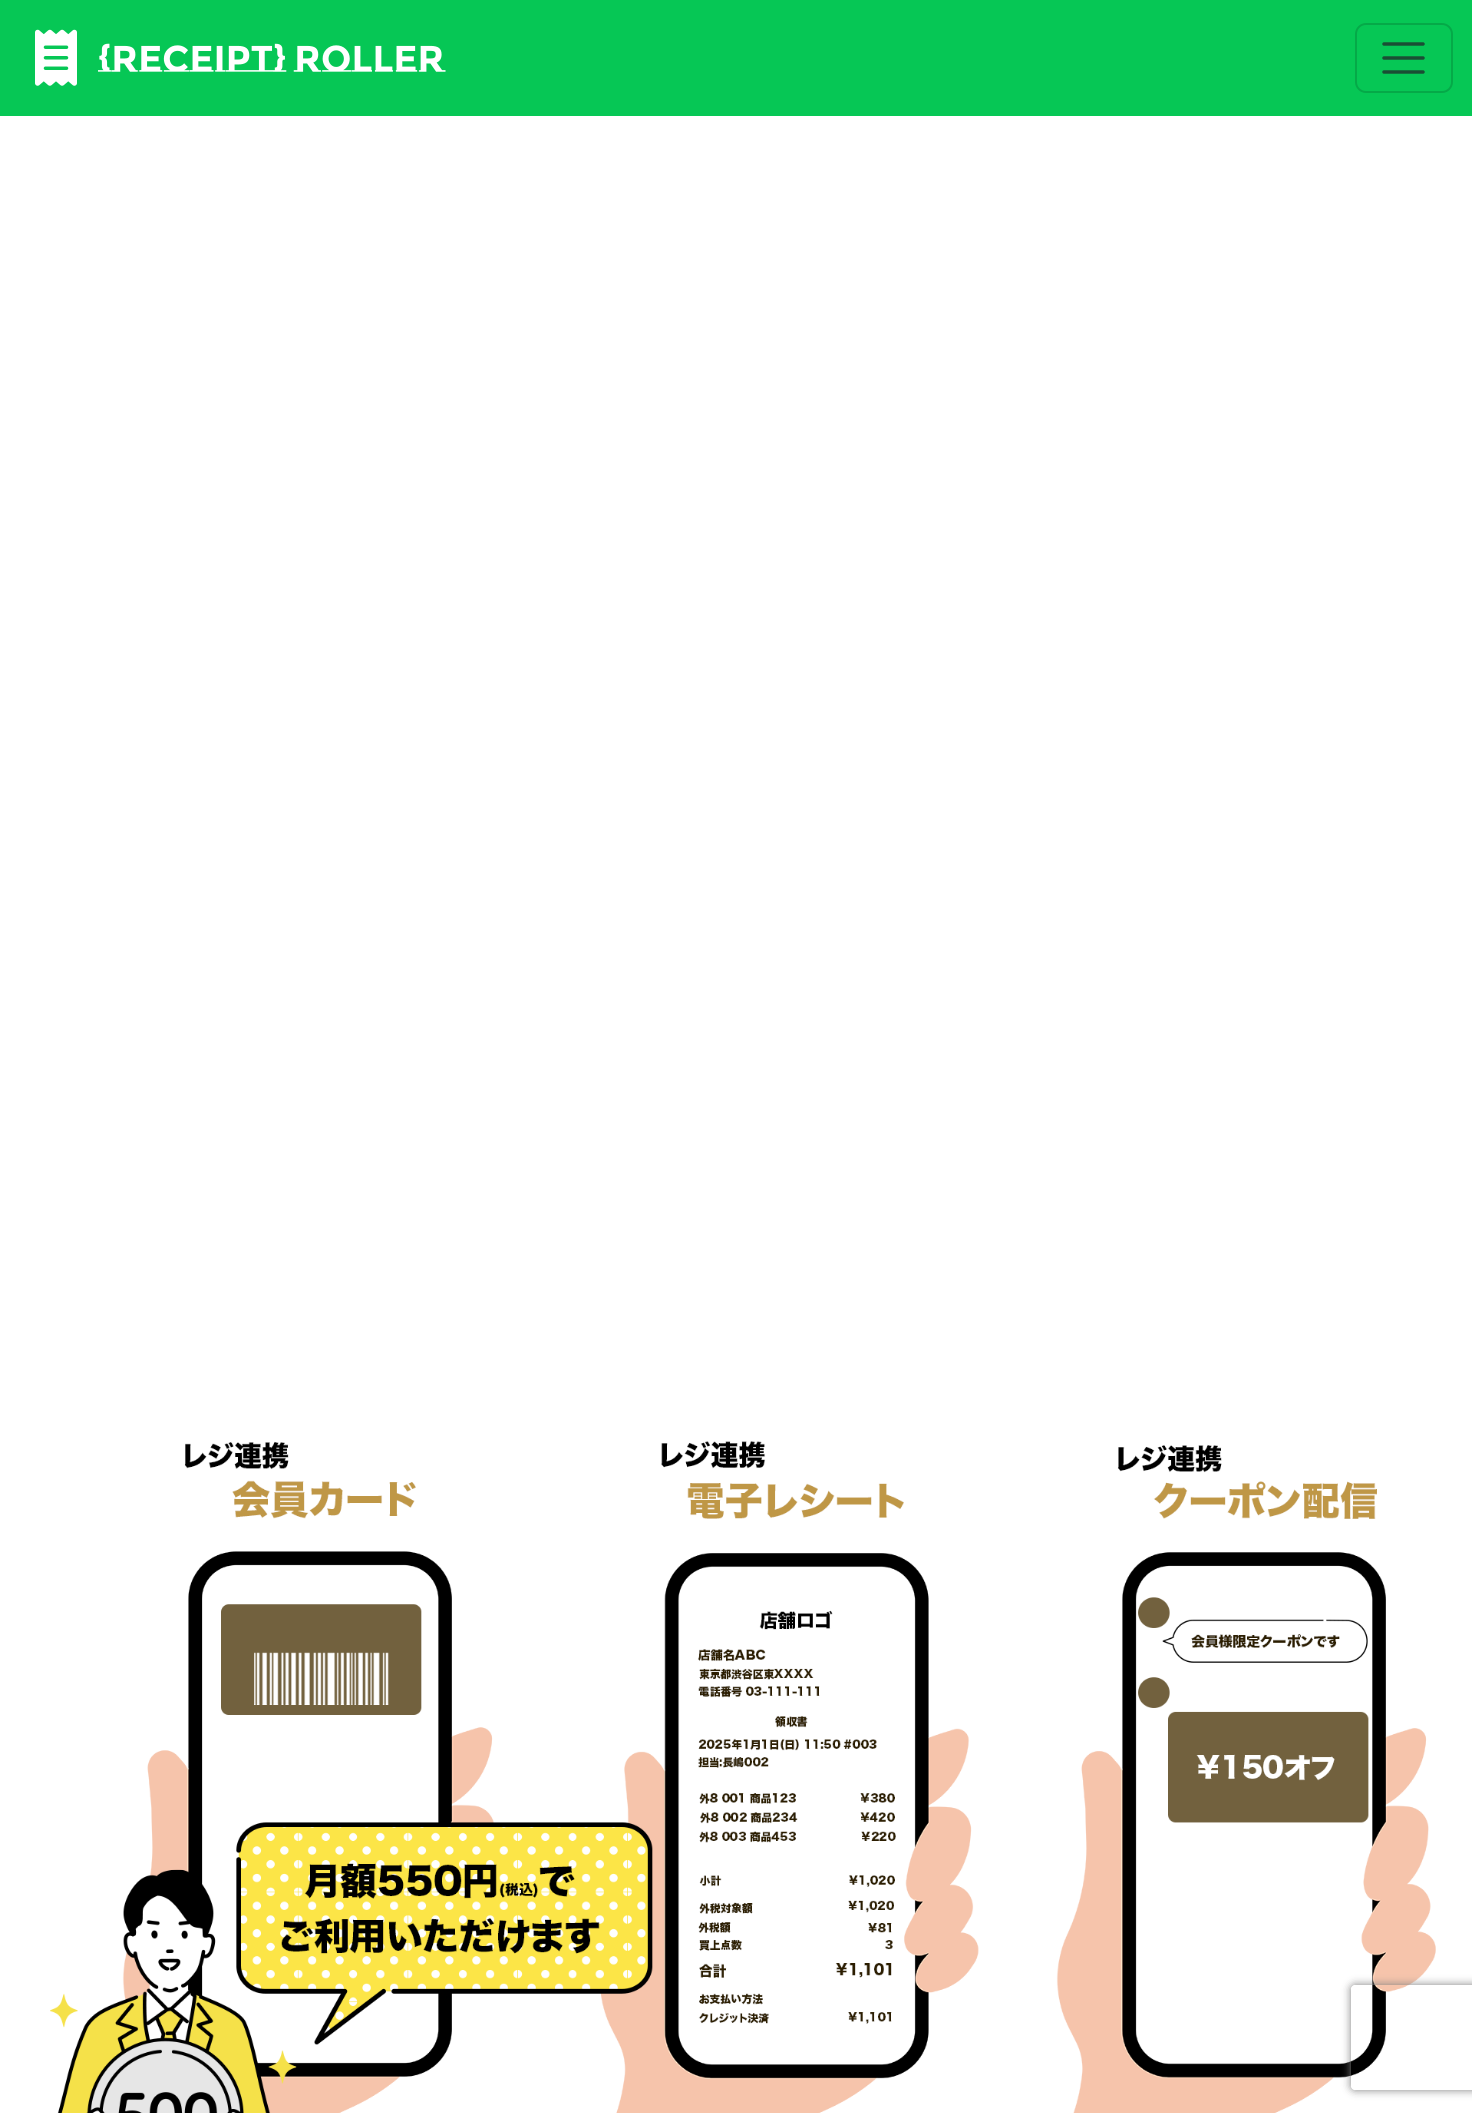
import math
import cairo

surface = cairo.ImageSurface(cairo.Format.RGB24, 1472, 2113)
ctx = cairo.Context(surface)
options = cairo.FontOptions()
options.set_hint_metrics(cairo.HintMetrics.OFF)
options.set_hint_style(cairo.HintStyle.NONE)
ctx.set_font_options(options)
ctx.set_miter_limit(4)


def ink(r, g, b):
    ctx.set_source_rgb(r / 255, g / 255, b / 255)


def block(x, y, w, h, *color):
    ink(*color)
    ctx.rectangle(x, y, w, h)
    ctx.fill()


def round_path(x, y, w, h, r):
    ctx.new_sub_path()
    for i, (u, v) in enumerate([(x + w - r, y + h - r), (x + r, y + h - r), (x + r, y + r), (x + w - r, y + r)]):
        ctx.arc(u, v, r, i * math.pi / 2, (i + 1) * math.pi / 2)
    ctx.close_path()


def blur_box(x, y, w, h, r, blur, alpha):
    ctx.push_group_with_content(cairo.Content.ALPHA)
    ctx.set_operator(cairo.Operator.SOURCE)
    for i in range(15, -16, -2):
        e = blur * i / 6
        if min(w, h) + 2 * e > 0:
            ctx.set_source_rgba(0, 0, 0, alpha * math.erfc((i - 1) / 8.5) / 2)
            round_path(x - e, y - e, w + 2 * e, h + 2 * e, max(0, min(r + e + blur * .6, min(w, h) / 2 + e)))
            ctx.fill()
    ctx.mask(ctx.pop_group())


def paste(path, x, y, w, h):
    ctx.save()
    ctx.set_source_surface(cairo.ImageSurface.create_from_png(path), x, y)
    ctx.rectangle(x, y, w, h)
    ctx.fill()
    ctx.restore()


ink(255, 255, 255)
ctx.paint()
block(0, 0, 1472, 116, 6, 199, 85)
paste("pic1.png", 35, 29, 411, 57)
round_path(1356, 24, 96, 68, 10)
ink(5, 169, 72)
ctx.stroke()
ctx.new_path()
ctx.move_to(1384, 44)
ctx.line_to(1423, 44)
ctx.move_to(1384, 58)
ctx.line_to(1423, 58)
ctx.move_to(1384, 72)
ctx.line_to(1423, 72)
ink(26, 78, 52)
ctx.set_line_width(3.5)
ctx.set_line_cap(cairo.LineCap.ROUND)
ctx.stroke()
paste("pic2.png", 50, 1441, 1386, 672)
ctx.save()
ctx.set_fill_rule(cairo.FillRule.EVEN_ODD)
ctx.new_path()
ctx.move_to(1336, 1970)
ctx.line_to(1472, 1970)
ctx.line_to(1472, 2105)
ctx.line_to(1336, 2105)
ctx.close_path()
ctx.move_to(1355, 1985)
ctx.line_to(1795, 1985)
ctx.curve_to(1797, 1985, 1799, 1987, 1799, 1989)
ctx.line_to(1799, 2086)
ctx.curve_to(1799, 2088, 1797, 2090, 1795, 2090)
ctx.line_to(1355, 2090)
ctx.curve_to(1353, 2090, 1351, 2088, 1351, 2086)
ctx.line_to(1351, 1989)
ctx.curve_to(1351, 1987, 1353, 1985, 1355, 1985)
ctx.close_path()
ctx.clip()
ink(128, 128, 128)
blur_box(1351, 1985, 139, 105, 4, 4.5, 1)
ctx.restore()
surface.write_to_png("screenshot.png")
